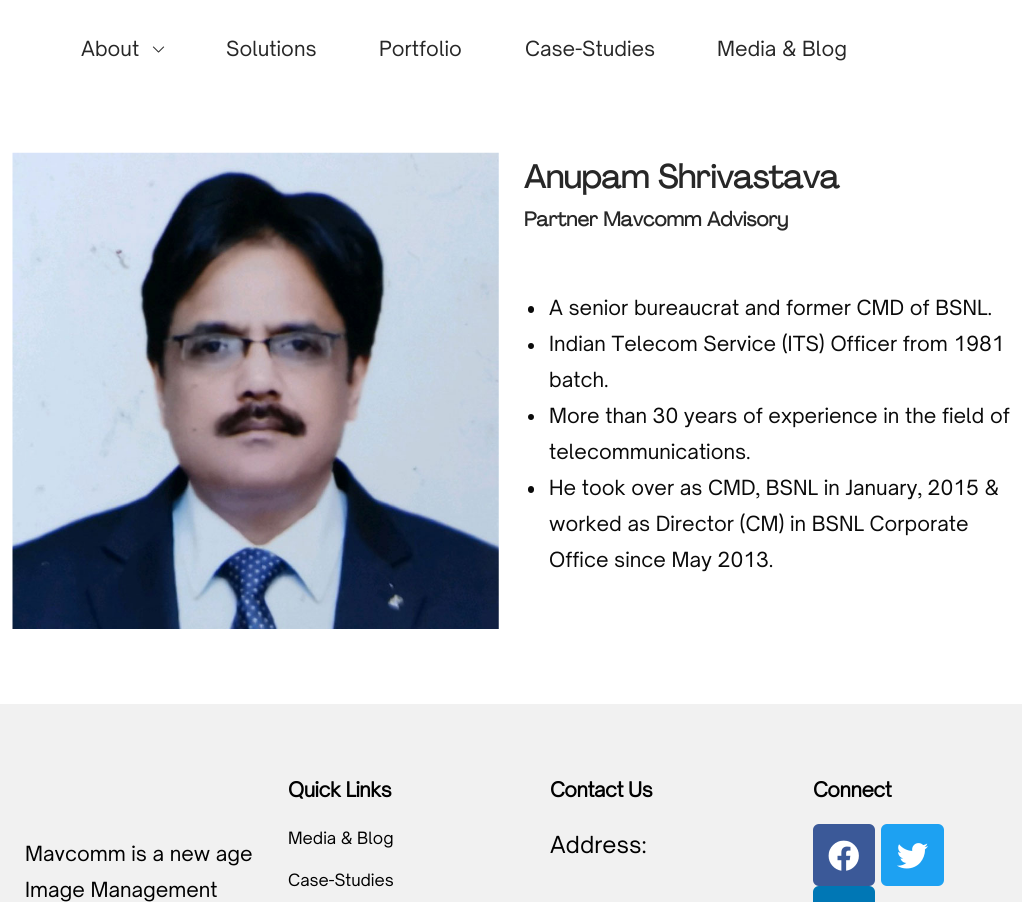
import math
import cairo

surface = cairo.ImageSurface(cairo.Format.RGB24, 1022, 902)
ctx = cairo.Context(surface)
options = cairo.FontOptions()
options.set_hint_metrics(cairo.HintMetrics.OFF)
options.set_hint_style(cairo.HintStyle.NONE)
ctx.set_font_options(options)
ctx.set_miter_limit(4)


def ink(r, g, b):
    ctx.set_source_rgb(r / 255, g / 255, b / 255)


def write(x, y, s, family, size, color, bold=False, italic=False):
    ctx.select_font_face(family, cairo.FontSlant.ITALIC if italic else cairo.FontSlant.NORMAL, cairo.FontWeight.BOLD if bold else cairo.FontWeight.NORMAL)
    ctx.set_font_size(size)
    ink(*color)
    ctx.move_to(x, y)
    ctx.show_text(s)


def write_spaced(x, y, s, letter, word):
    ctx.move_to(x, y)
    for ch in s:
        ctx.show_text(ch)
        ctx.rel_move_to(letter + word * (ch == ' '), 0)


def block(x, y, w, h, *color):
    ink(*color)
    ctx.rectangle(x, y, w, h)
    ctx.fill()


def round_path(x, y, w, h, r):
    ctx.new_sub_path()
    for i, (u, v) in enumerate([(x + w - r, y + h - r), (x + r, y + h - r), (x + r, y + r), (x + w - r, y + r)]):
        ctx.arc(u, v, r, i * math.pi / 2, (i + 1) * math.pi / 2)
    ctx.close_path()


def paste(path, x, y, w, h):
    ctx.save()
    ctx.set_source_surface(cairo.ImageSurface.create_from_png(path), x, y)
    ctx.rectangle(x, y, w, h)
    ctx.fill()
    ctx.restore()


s1 = dict(family="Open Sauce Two", size=20, color=(39, 39, 39))
s2 = dict(family="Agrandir", size=32.5, color=(39, 39, 39), bold=True)
s3 = dict(family="Agrandir", size=20, color=(39, 39, 39), bold=True)
s4 = dict(family="Open Sauce Two", size=20, color=(10, 10, 10))
s5 = dict(family="Open Sauce Two", size=16.25, color=(0, 0, 0))
s6 = dict(family="Open Sauce Two", size=22.5, color=(0, 0, 0))
s7 = dict(family="Open Sauce Two", size=20, color=(0, 0, 0))

ink(255, 255, 255)
ctx.paint()
write(81, 56, "About", **s1)
paste("pic1.png", 152, 46, 13, 7)
write(226, 56, "Solutions", **s1)
write(379, 56, "Portfolio", **s1)
write(525, 56, "Case-Studies", **s1)
write(717, 56, "Media & Blog", **s1)
paste("pic2.png", 12, 152, 487, 477)
write(524, 188, "Anupam Shrivastava", **s2)
write(524, 226, "Partner Mavcomm Advisory", **s3)
ink(10, 10, 10)
round_path(528, 306, 6, 7, 3)
ctx.fill()
write(549, 315, "A senior bureaucrat and former CMD of BSNL.", **s4)
ctx.new_path()
ctx.arc(531, 346, 3, 0, 2 * math.pi)
ctx.fill()
write(549, 351, "Indian Telecom Service (ITS) Officer from 1981", **s4)
write(549, 387, "batch.", **s4)
ctx.new_path()
ctx.arc(531, 417, 3, 0, 2 * math.pi)
ctx.fill()
write(549, 423, "More than 30 years of experience in the field of", **s4)
write(549, 459, "telecommunications.", **s4)
round_path(528, 486, 6, 7, 3)
ctx.fill()
write(549, 495, "He took over as CMD, BSNL in January, 2015 &", **s4)
write(549, 531, "worked as Director (CM) in BSNL Corporate", **s4)
write(549, 567, "Office since May 2013.", **s4)
block(0, 704, 1022, 198, 241, 241, 241)
ctx.select_font_face("Open Sauce Two", cairo.FontSlant.NORMAL, cairo.FontWeight.BOLD)
ink(0, 0, 0)
write_spaced(288, 797, "Quick Links", -0.6, 0)
write(288, 844, "Media & Blog", **s5)
write(288, 886, "Case-Studies", **s5)
ctx.select_font_face("Open Sauce Two", cairo.FontSlant.NORMAL, cairo.FontWeight.BOLD)
ctx.set_font_size(20)
write_spaced(550, 797, "Contact Us", -0.6, 0)
write(550, 853, "Address:", **s6)
ctx.select_font_face("Open Sauce Two", cairo.FontSlant.NORMAL, cairo.FontWeight.BOLD)
ctx.set_font_size(20)
write_spaced(813, 797, "Connect", -0.6, 0)
ink(59, 89, 152)
round_path(813, 824, 62, 62, 6)
ctx.fill()
paste("pic3.png", 828, 840, 31, 31)
ink(29, 161, 242)
round_path(881, 824, 63, 62, 6)
ctx.fill()
paste("pic4.png", 897, 843, 31, 26)
ink(0, 119, 181)
round_path(813, 886, 62, 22, 6)
ctx.fill()
write(25, 861, "Mavcomm is a new age", **s7)
write(25, 897, "Image Management", **s7)
surface.write_to_png("screenshot.png")
